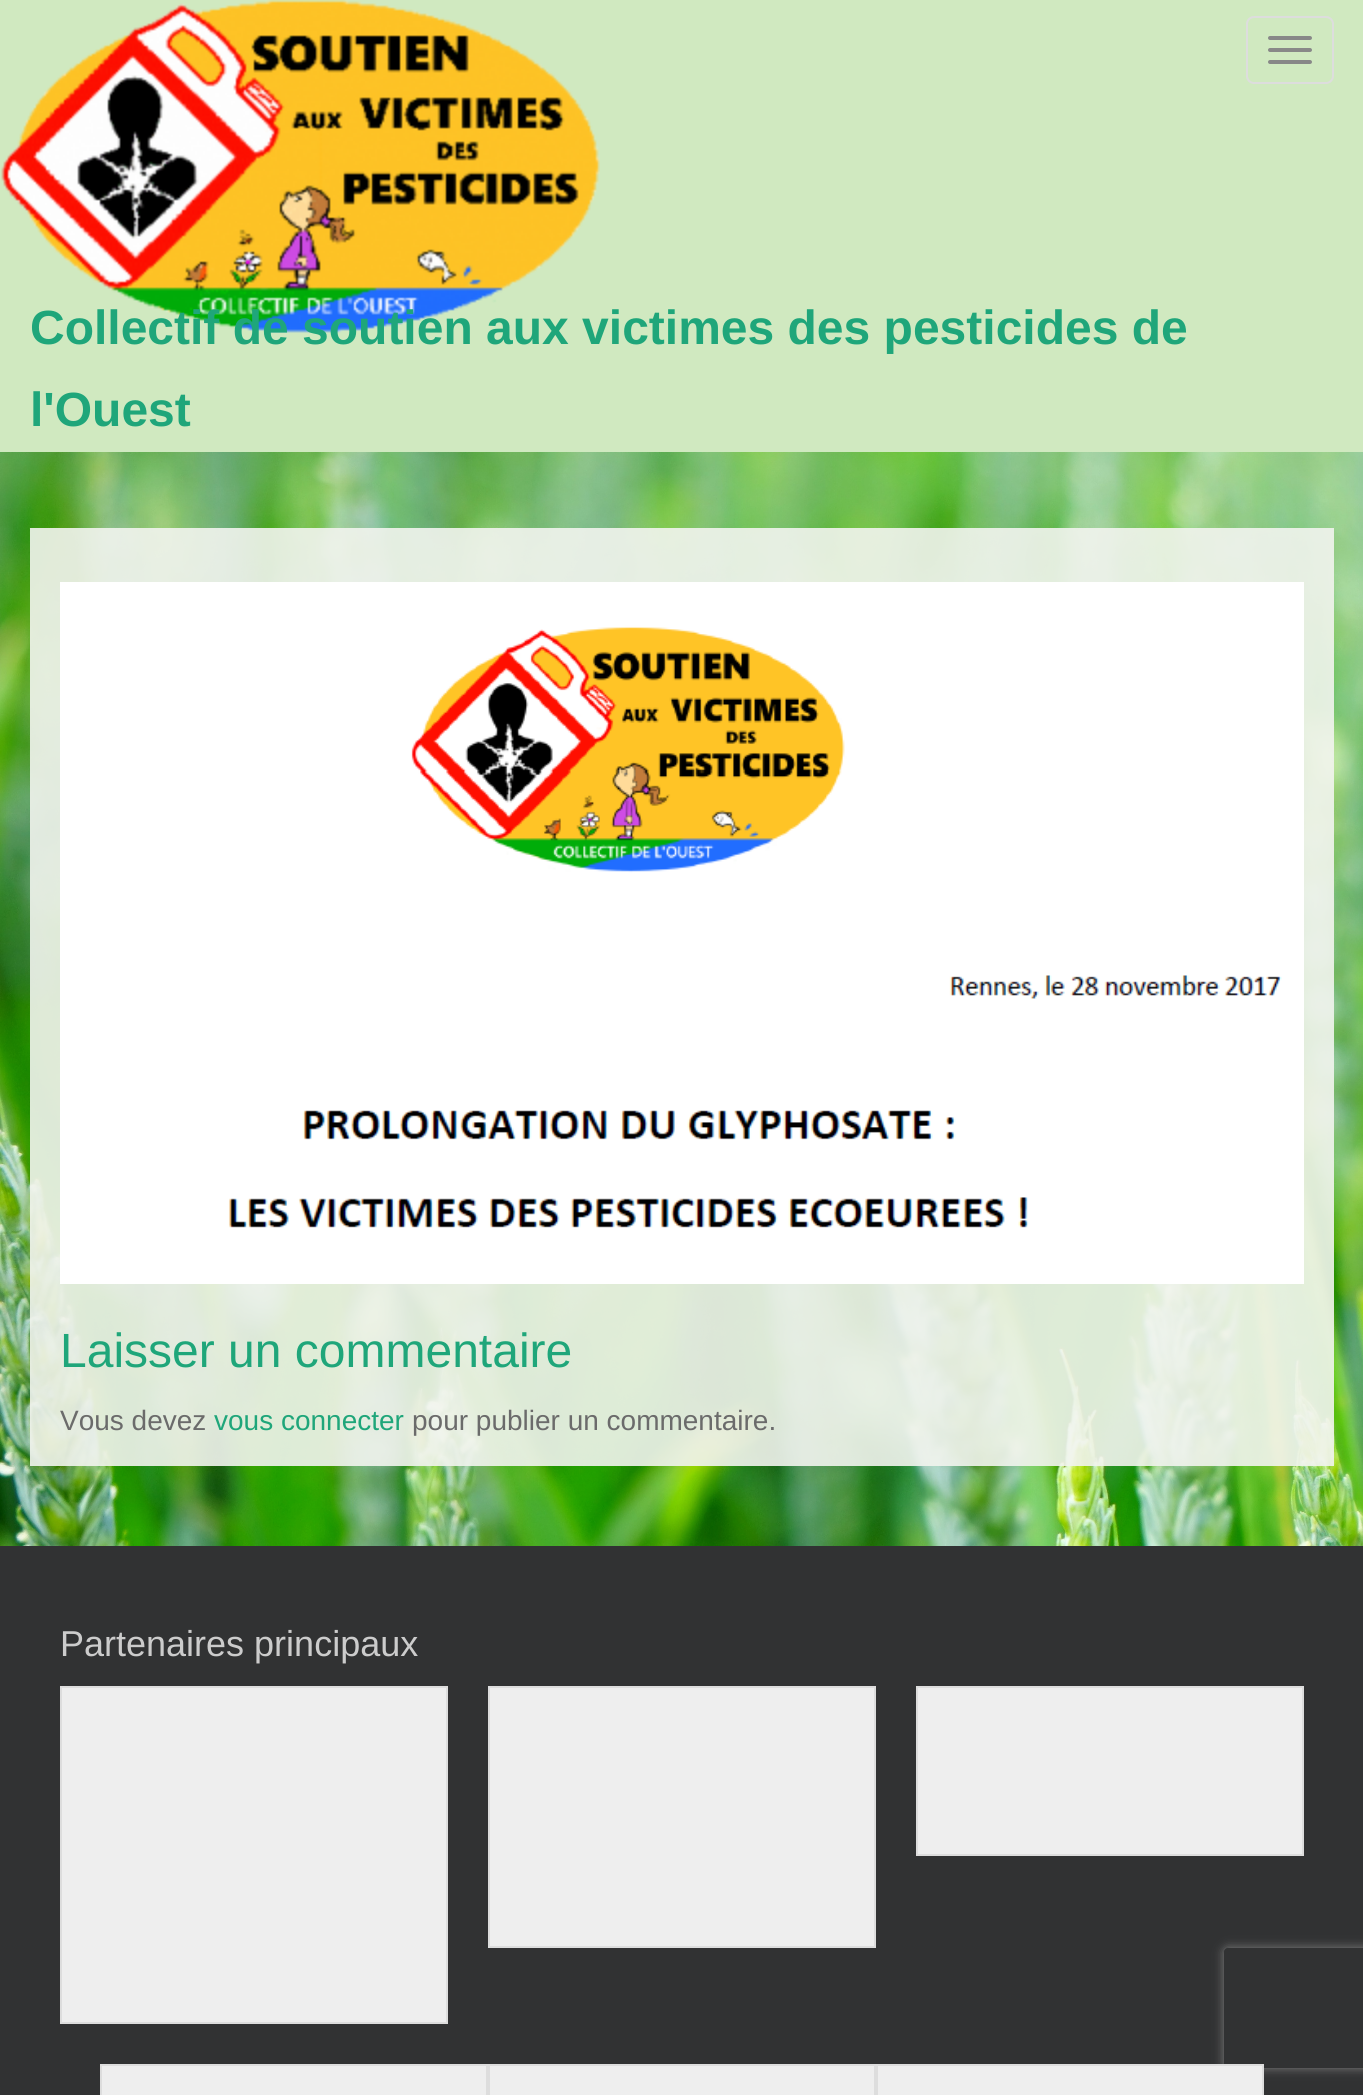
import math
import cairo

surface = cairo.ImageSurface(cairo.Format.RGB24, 1363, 2095)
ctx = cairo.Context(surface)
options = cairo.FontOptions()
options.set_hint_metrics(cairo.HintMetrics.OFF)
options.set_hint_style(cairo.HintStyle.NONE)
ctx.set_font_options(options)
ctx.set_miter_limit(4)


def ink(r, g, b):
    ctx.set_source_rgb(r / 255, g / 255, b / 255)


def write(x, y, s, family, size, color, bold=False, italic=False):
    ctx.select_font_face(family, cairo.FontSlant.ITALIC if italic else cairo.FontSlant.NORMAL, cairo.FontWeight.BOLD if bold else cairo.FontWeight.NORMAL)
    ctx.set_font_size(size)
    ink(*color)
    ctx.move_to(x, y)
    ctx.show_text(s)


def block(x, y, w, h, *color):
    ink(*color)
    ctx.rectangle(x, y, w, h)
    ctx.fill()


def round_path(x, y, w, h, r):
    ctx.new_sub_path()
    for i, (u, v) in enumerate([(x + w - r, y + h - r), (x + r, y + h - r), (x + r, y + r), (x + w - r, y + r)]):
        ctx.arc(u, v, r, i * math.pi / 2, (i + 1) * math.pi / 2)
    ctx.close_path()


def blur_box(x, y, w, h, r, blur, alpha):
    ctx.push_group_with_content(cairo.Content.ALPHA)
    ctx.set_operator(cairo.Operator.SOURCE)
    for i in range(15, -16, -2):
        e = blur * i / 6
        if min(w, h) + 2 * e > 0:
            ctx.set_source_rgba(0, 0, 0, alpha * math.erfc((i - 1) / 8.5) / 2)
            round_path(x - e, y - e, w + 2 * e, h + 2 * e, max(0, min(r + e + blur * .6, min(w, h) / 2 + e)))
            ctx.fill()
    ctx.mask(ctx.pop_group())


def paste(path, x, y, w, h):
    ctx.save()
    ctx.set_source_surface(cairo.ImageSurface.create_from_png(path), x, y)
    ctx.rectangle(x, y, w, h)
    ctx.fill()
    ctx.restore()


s1 = dict(family="Liberation Sans", size=48, color=(31, 166, 122), bold=True)
s2 = dict(family="Liberation Sans", size=48, color=(31, 166, 122))
s3 = dict(family="Liberation Sans", size=28, color=(107, 107, 107))
s4 = dict(family="Liberation Sans", size=28, color=(31, 166, 122))
s5 = dict(family="Liberation Sans", size=36, color=(204, 204, 204))

ink(255, 255, 255)
ctx.paint()
paste("pic1.png", 0, 452, 1363, 1094)
block(0, 0, 1363, 452, 208, 233, 192)
paste("pic2.png", 1, 0, 599, 333)
round_path(1247, 17, 86, 66, 7)
ink(221, 221, 221)
ctx.stroke()
ink(136, 136, 136)
round_path(1268, 36, 44, 4, 2)
ctx.fill()
round_path(1268, 48, 44, 4, 2)
ctx.fill()
round_path(1268, 60, 44, 4, 2)
ctx.fill()
write(30, 344, "Collectif de soutien aux victimes des pesticides de", **s1)
write(30, 426, "l'Ouest", **s1)
ctx.set_source_rgba(0.949, 0.957, 0.937, 0.9)
ctx.rectangle(30, 528, 1304, 938)
ctx.fill()
paste("pic3.png", 60, 582, 1244, 702)
write(60, 1367, "Laisser un commentaire", **s2)
write(60, 1430, "Vous devez", **s3)
write(214, 1430, "vous connecter", **s4)
write(412, 1430, "pour publier un commentaire.", **s3)
block(0, 1546, 1363, 549, 49, 50, 51)
write(60, 1656, "Partenaires principaux", **s5)
ink(238, 238, 238)
ctx.rectangle(61, 1687, 386, 336)
ctx.fill_preserve()
ink(221, 221, 221)
ctx.stroke()
ink(238, 238, 238)
ctx.rectangle(489, 1687, 386, 260)
ctx.fill_preserve()
ink(221, 221, 221)
ctx.stroke()
ink(238, 238, 238)
ctx.rectangle(917, 1687, 386, 168)
ctx.fill_preserve()
ink(221, 221, 221)
ctx.stroke()
ink(238, 238, 238)
ctx.rectangle(101, 2065, 386, 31)
ctx.fill_preserve()
ink(221, 221, 221)
ctx.stroke()
ink(238, 238, 238)
ctx.rectangle(489, 2065, 386, 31)
ctx.fill_preserve()
ink(221, 221, 221)
ctx.stroke()
ctx.save()
ctx.set_fill_rule(cairo.FillRule.EVEN_ODD)
ctx.new_path()
ctx.move_to(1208, 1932)
ctx.line_to(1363, 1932)
ctx.line_to(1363, 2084)
ctx.line_to(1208, 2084)
ctx.close_path()
ctx.move_to(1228, 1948)
ctx.line_to(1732, 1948)
ctx.curve_to(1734, 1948, 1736, 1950, 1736, 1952)
ctx.line_to(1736, 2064)
ctx.curve_to(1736, 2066, 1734, 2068, 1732, 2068)
ctx.line_to(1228, 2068)
ctx.curve_to(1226, 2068, 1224, 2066, 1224, 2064)
ctx.line_to(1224, 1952)
ctx.curve_to(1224, 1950, 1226, 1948, 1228, 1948)
ctx.close_path()
ctx.clip()
ink(128, 128, 128)
blur_box(1224, 1948, 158, 120, 4, 5, 1)
ctx.restore()
ink(238, 238, 238)
ctx.rectangle(877, 2065, 386, 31)
ctx.fill_preserve()
ink(221, 221, 221)
ctx.stroke()
surface.write_to_png("screenshot.png")
